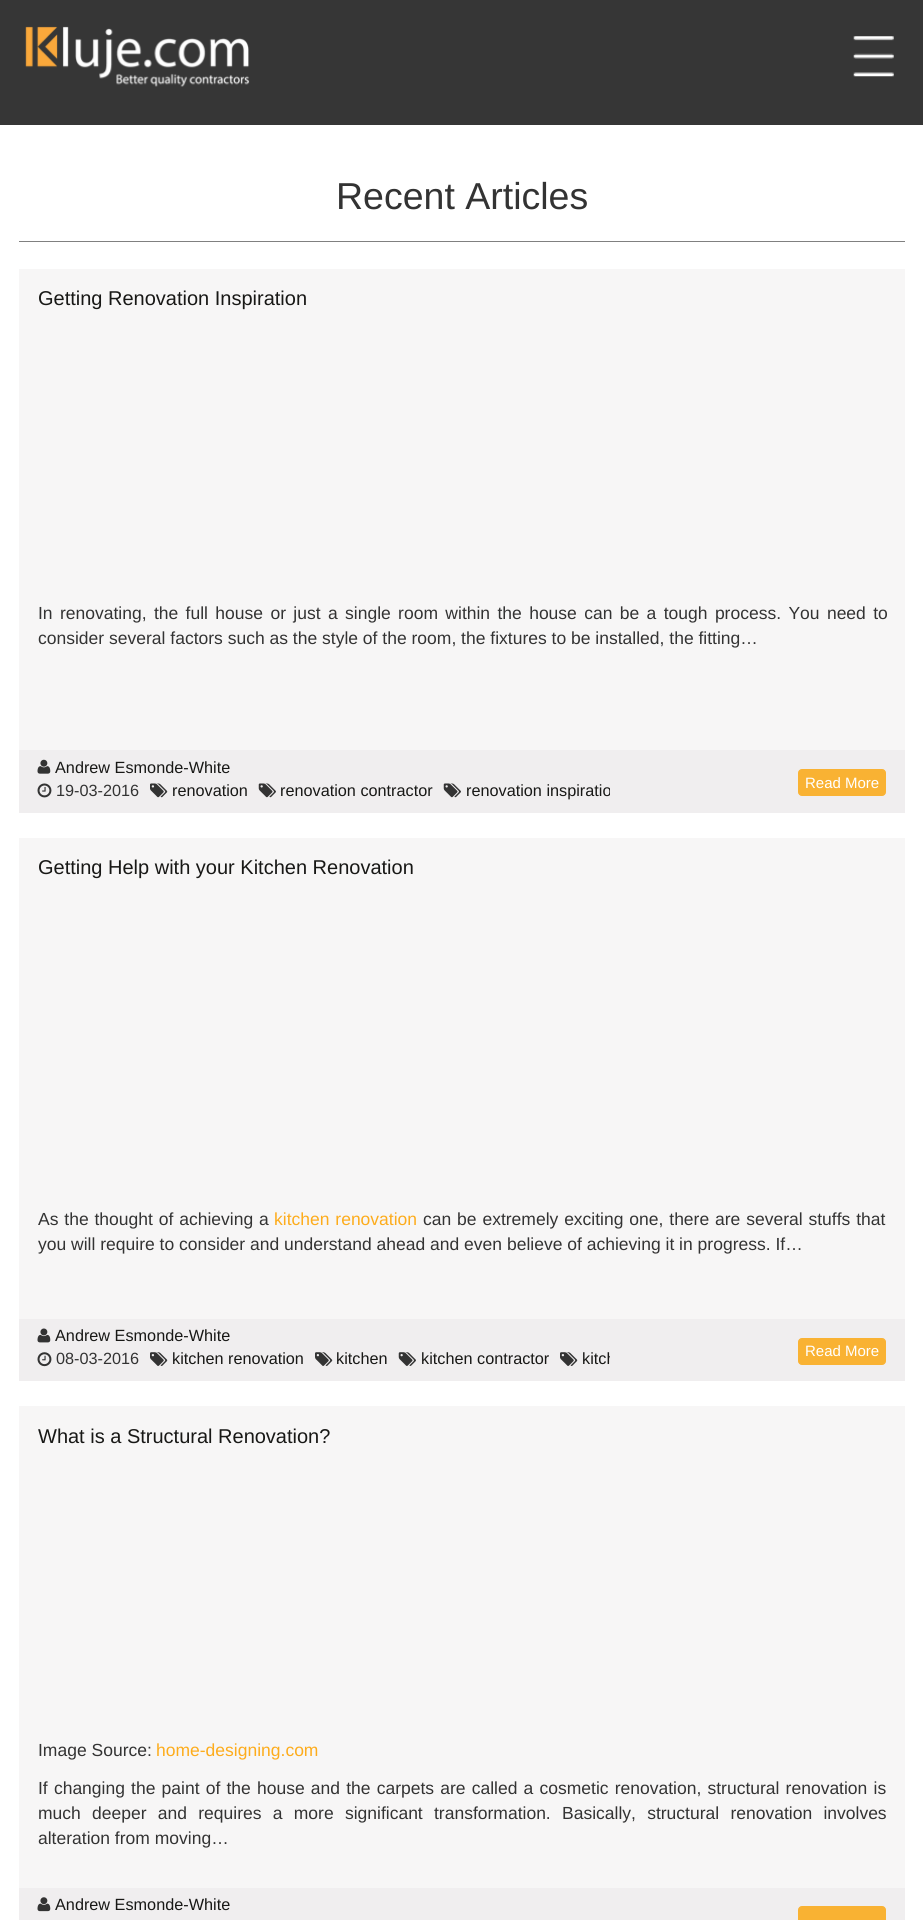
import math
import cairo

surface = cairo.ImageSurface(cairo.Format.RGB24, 923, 1920)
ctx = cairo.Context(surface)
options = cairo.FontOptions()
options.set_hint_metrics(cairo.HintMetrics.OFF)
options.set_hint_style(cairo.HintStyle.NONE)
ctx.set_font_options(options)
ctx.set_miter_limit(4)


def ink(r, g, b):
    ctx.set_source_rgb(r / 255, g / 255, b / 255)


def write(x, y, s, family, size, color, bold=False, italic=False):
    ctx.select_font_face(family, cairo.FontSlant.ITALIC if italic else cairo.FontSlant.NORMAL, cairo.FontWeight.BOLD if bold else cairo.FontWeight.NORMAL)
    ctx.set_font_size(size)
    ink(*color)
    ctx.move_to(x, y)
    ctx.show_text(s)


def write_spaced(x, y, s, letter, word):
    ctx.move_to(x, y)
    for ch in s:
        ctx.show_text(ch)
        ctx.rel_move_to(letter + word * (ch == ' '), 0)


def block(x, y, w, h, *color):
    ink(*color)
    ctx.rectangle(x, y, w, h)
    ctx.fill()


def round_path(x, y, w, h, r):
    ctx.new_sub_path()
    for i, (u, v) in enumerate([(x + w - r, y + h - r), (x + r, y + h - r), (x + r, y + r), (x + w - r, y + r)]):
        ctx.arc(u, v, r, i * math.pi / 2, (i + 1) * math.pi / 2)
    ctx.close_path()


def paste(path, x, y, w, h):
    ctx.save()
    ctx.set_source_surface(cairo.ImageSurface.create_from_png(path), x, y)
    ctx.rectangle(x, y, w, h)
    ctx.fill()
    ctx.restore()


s1 = dict(family="Liberation Sans", size=37.5, color=(51, 51, 51))
s2 = dict(family="Liberation Sans", size=20, color=(24, 24, 22))
s3 = dict(family="Liberation Sans", size=17.5, color=(51, 51, 51))
s4 = dict(family="Liberation Sans", size=16.25, color=(24, 24, 22))
s5 = dict(family="Liberation Sans", size=16.25, color=(51, 51, 51))
s6 = dict(family="Liberation Sans", size=15, color=(255, 255, 255))
s7 = dict(family="Liberation Sans", size=17.5, color=(253, 172, 28))

ink(255, 255, 255)
ctx.paint()
block(0, 0, 923, 125, 54, 54, 54)
paste("pic1.png", 25, 26, 225, 61)
paste("pic2.png", 853, 36, 41, 41)
write(336, 209, "Recent Articles", **s1)
block(19, 241, 886, 1, 128, 128, 128)
block(19, 269, 886, 481, 247, 246, 246)
write(38, 305, "Getting Renovation Inspiration", **s2)
ctx.set_font_size(17.5)
ink(51, 51, 51)
write_spaced(38, 619, "In renovating, the full house or just a single room within the house can be a tough process. You need to", 0, 2.5)
write(38, 644, "consider several factors such as the style of the room, the fixtures to be installed, the fitting…", **s3)
block(19, 750, 886, 63, 240, 238, 239)
paste("pic3.png", 37, 759, 14, 15)
write(55, 773, "Andrew Esmonde-White", **s4)
paste("pic4.png", 37, 783, 15, 15)
write(56, 796, "19-03-2016", **s5)
paste("pic5.png", 150, 783, 18, 15)
write(172, 796, "renovation", **s4)
paste("pic6.png", 258, 783, 18, 15)
write(280, 796, "renovation contractor", **s4)
paste("pic6.png", 443, 783, 18, 15)
ctx.save()
ctx.rectangle(19, 756, 591, 47)
ctx.clip()
write(466, 796, "renovation inspiratio", **s4)
ctx.restore()
ink(249, 178, 51)
round_path(798.5, 769.5, 87, 26, 3.5)
ctx.fill_preserve()
ctx.set_line_width(1)
ctx.stroke()
write(805, 788, "Read More", **s6)
block(19, 838, 886, 481, 247, 246, 246)
write(38, 874, "Getting Help with your Kitchen Renovation", **s2)
ctx.set_font_size(17.5)
ink(51, 51, 51)
write_spaced(38, 1225, "As the thought of achieving a", 0, 1)
ink(253, 172, 28)
write_spaced(274, 1225, "kitchen renovation", 0, 1)
ink(51, 51, 51)
write_spaced(423, 1225, "can be extremely exciting one, there are several stuffs that", 0, 1)
write(38, 1250, "you will require to consider and understand ahead and even believe of achieving it in progress. If…", **s3)
block(19, 1319, 886, 62, 240, 238, 239)
paste("pic7.png", 37, 1328, 14, 15)
write(55, 1341, "Andrew Esmonde-White", **s4)
paste("pic8.png", 37, 1352, 15, 15)
write(56, 1364, "08-03-2016", **s5)
paste("pic9.png", 150, 1352, 18, 14)
write(172, 1364, "kitchen renovation", **s4)
paste("pic9.png", 315, 1352, 18, 14)
write(336, 1364, "kitchen", **s4)
paste("pic10.png", 398, 1352, 18, 14)
write(421, 1364, "kitchen contractor", **s4)
paste("pic9.png", 560, 1352, 18, 14)
ctx.save()
ctx.rectangle(19, 1325, 591, 46)
ctx.clip()
write(582, 1364, "kitch", **s4)
ctx.restore()
ink(249, 178, 51)
round_path(798.5, 1338.5, 87, 26, 3.5)
ctx.fill_preserve()
ctx.stroke()
write(805, 1356, "Read More", **s6)
block(19, 1406, 886, 482, 247, 246, 246)
write(38, 1443, "What is a Structural Renovation?", **s2)
write(38, 1756, "Image Source:", **s3)
write(156, 1756, "home-designing.com", **s7)
ink(51, 51, 51)
write_spaced(38, 1794, "If changing the paint of the house and the carpets are called a cosmetic renovation, structural renovation is", 0, 1.3)
write_spaced(38, 1819, "much deeper and requires a more significant transformation. Basically, structural renovation involves", 0, 6.4)
write(38, 1844, "alteration from moving…", **s3)
block(19, 1888, 886, 32, 240, 238, 239)
paste("pic11.png", 37, 1897, 14, 15)
write(55, 1910, "Andrew Esmonde-White", **s4)
ink(249, 178, 51)
round_path(798.5, 1906.5, 87, 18, 3.5)
ctx.fill_preserve()
ctx.stroke()
surface.write_to_png("screenshot.png")
